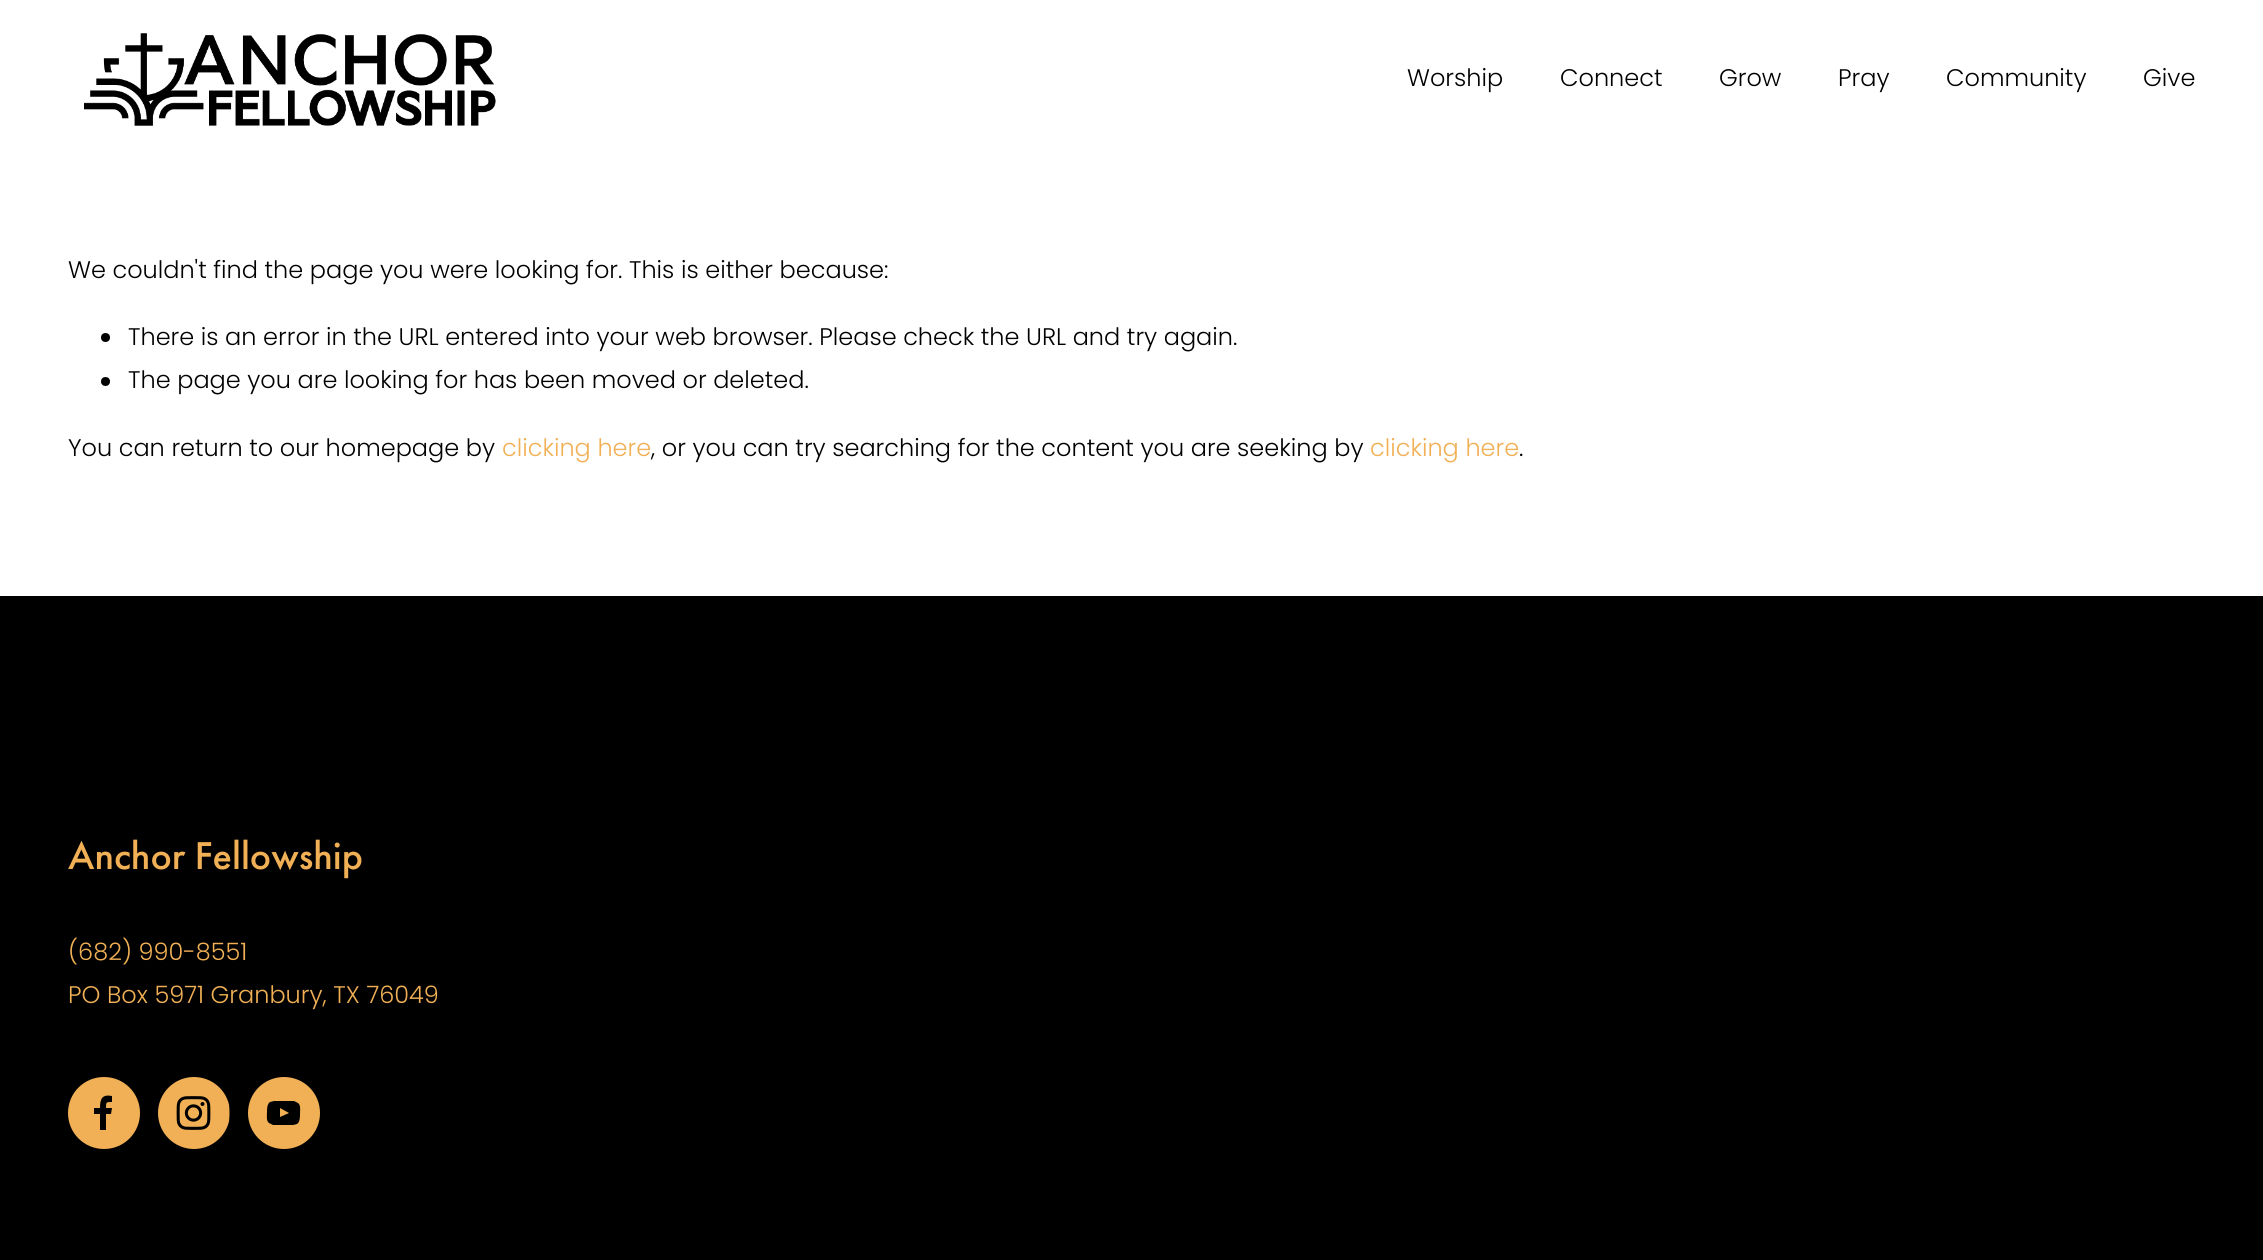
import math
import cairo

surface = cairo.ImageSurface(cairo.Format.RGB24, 2263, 1260)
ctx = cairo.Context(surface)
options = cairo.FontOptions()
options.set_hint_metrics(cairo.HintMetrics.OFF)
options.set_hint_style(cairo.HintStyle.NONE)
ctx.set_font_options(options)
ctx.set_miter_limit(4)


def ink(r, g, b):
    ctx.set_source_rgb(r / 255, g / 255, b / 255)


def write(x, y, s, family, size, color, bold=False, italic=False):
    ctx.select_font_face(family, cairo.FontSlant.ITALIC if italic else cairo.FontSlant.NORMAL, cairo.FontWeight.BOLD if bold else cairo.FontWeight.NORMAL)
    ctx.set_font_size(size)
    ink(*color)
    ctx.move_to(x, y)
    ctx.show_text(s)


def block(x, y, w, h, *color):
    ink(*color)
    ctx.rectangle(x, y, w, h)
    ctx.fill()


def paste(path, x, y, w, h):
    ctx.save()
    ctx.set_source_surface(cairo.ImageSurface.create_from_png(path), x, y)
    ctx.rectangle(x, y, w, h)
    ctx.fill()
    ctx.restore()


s1 = dict(family="Poppins Light", size=24, color=(0, 0, 0))
s2 = dict(family="Poppins Light", size=24, color=(241, 176, 85))
s3 = dict(family="Futura PT Medium", size=40.25, color=(241, 176, 85))

ink(255, 255, 255)
ctx.paint()
paste("pic1.png", 84, 33, 412, 93)
write(1407, 86, "Worship", **s1)
write(1560, 86, "Connect", **s1)
write(1719, 86, "Grow", **s1)
write(1838, 86, "Pray", **s1)
write(1946, 86, "Community", **s1)
write(2143, 86, "Give", **s1)
write(68, 278, "We couldn't find the page you were looking for. This is either because:", **s1)
ctx.new_path()
ctx.arc(105.5, 337.5, 4.5, 0, 2 * math.pi)
ctx.fill()
write(128, 345, "There is an error in the URL entered into your web browser. Please check the URL and try again.", **s1)
ctx.new_path()
ctx.arc(105.5, 381.5, 4.5, 0, 2 * math.pi)
ctx.fill()
write(128, 388, "The page you are looking for has been moved or deleted.", **s1)
write(68, 456, "You can return to our homepage by", **s1)
write(502, 456, "clicking here", **s2)
write(651, 456, ", or you can try searching for the content you are seeking by", **s1)
write(1370, 456, "clicking here", **s2)
write(1519, 456, ".", **s1)
block(0, 596, 2263, 664, 0, 0, 0)
write(68, 869, "Anchor Fellowship", **s3)
write(68, 960, "(682) 990-8551", **s2)
write(68, 1003, "PO Box 5971 Granbury, TX 76049", **s2)
ctx.set_fill_rule(cairo.FillRule.EVEN_ODD)
ctx.new_path()
ctx.move_to(104, 1077)
ctx.curve_to(84, 1077, 68, 1093, 68, 1113)
ctx.curve_to(68, 1133, 84, 1149, 104, 1149)
ctx.curve_to(124, 1149, 140, 1133, 140, 1113)
ctx.curve_to(140, 1093, 124, 1077, 104, 1077)
ctx.close_path()
ctx.move_to(112, 1102)
ctx.line_to(112, 1096)
ctx.curve_to(102, 1094, 100, 1099, 100, 1108)
ctx.line_to(94, 1108)
ctx.line_to(94, 1114)
ctx.line_to(100, 1114)
ctx.line_to(100, 1130)
ctx.line_to(106, 1130)
ctx.line_to(106, 1114)
ctx.line_to(111, 1114)
ctx.line_to(112, 1108)
ctx.line_to(106, 1108)
ctx.curve_to(106, 1102, 106, 1102, 112, 1102)
ctx.close_path()
ctx.fill()
paste("pic2.png", 158, 1077, 72, 72)
ctx.new_path()
ctx.move_to(284, 1077)
ctx.curve_to(264, 1077, 248, 1093, 248, 1113)
ctx.curve_to(248, 1133, 264, 1149, 284, 1149)
ctx.curve_to(304, 1149, 320, 1133, 320, 1113)
ctx.curve_to(320, 1093, 304, 1077, 284, 1077)
ctx.close_path()
ctx.move_to(300, 1114)
ctx.curve_to(300, 1111, 301, 1105, 298, 1103)
ctx.line_to(294, 1101)
ctx.line_to(274, 1101)
ctx.line_to(270, 1102)
ctx.curve_to(267, 1104, 267, 1109, 267, 1112)
ctx.curve_to(267, 1115, 266, 1121, 269, 1123)
ctx.line_to(273, 1125)
ctx.line_to(293, 1125)
ctx.line_to(297, 1124)
ctx.curve_to(300, 1122, 300, 1117, 300, 1114)
ctx.close_path()
ctx.move_to(280, 1117)
ctx.line_to(280, 1108)
ctx.line_to(289, 1113)
ctx.close_path()
ctx.fill()
surface.write_to_png("screenshot.png")
